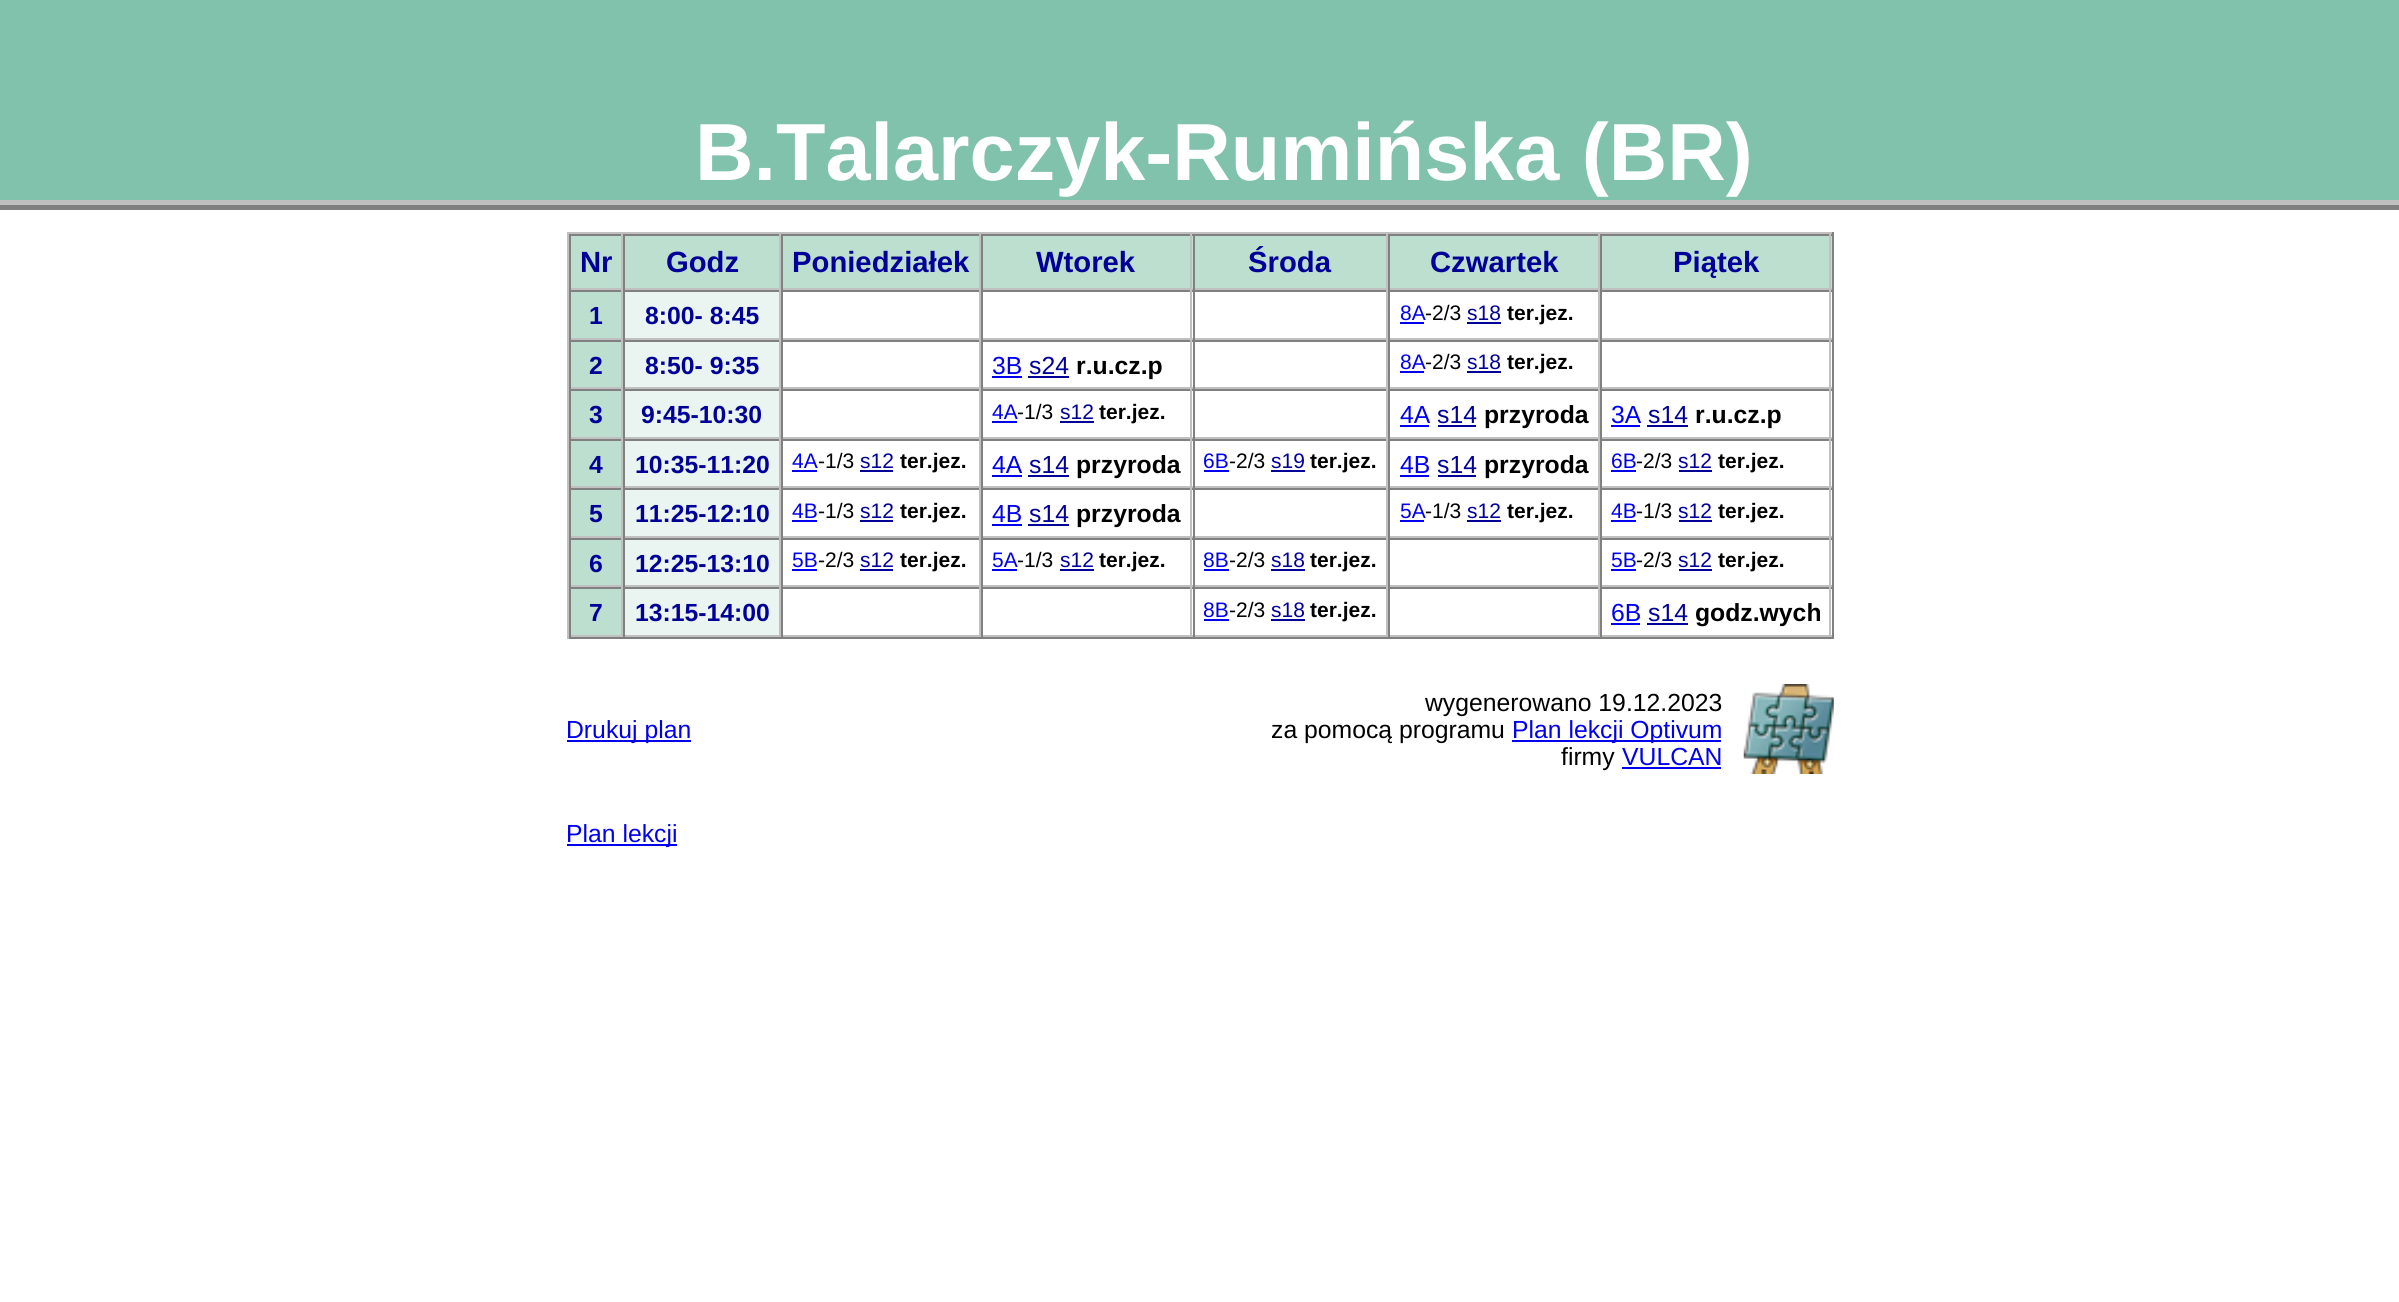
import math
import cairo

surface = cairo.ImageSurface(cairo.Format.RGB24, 2399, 1302)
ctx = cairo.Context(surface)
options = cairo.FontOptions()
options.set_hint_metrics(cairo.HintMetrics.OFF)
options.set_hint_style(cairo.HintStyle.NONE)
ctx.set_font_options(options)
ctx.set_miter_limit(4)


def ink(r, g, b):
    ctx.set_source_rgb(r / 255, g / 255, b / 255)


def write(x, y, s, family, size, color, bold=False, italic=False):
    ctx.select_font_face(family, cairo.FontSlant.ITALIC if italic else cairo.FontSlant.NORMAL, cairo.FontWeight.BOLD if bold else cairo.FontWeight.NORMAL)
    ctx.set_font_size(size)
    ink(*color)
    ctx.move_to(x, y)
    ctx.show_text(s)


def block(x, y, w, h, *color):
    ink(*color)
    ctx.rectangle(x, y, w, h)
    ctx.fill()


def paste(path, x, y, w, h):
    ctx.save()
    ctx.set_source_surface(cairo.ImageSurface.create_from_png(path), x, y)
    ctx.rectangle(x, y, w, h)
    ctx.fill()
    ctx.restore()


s1 = dict(family="Liberation Sans", size=81, color=(255, 255, 255), bold=True)
s2 = dict(family="Liberation Sans", size=29.25, color=(0, 0, 153), bold=True)
s3 = dict(family="Liberation Sans", size=24.75, color=(0, 0, 153), bold=True)
s4 = dict(family="Liberation Sans", size=21, color=(0, 0, 238))
s5 = dict(family="Liberation Sans", size=21, color=(0, 0, 0))
s6 = dict(family="Liberation Sans", size=21, color=(0, 0, 153))
s7 = dict(family="Liberation Sans", size=21, color=(0, 0, 0), bold=True)
s8 = dict(family="Liberation Sans", size=24.75, color=(0, 0, 238))
s9 = dict(family="Liberation Sans", size=24.75, color=(0, 0, 153))
s10 = dict(family="Liberation Sans", size=24.75, color=(0, 0, 0), bold=True)
s11 = dict(family="Liberation Sans", size=24.75, color=(0, 0, 0))

ink(255, 255, 255)
ctx.paint()
block(0, 0, 2399, 200, 128, 194, 171)
block(0, 205, 2399, 5, 128, 128, 128)
block(0, 200, 2399, 5, 192, 192, 192)
write(695, 180, "B.Talarczyk-Rumińska (BR)", **s1)
block(567, 232, 1267, 2, 192, 192, 192)
block(1832, 232, 2, 407, 128, 128, 128)
block(567, 637, 1267, 2, 128, 128, 128)
block(567, 232, 2, 407, 192, 192, 192)
block(571, 236, 50, 52, 189, 223, 208)
block(569, 234, 1263, 2, 128, 128, 128)
block(621, 234, 2, 56, 192, 192, 192)
block(569, 288, 54, 2, 192, 192, 192)
block(569, 234, 2, 56, 128, 128, 128)
write(580, 272, "Nr", **s2)
block(625, 236, 154, 52, 189, 223, 208)
block(779, 234, 2, 56, 192, 192, 192)
block(623, 288, 158, 2, 192, 192, 192)
block(623, 234, 2, 56, 128, 128, 128)
write(666, 272, "Godz", **s2)
block(783, 236, 196, 52, 189, 223, 208)
block(979, 234, 2, 56, 192, 192, 192)
block(781, 288, 200, 2, 192, 192, 192)
block(781, 234, 2, 56, 128, 128, 128)
write(792, 272, "Poniedziałek", **s2)
block(983, 236, 210, 52, 189, 223, 208)
block(1190, 234, 2, 56, 192, 192, 192)
block(981, 288, 212, 2, 192, 192, 192)
block(981, 234, 2, 56, 128, 128, 128)
write(1036, 272, "Wtorek", **s2)
block(1195, 236, 191, 52, 189, 223, 208)
block(1386, 234, 2, 56, 192, 192, 192)
block(1193, 288, 195, 2, 192, 192, 192)
block(1193, 234, 2, 56, 128, 128, 128)
write(1248, 272, "Środa", **s2)
block(1390, 236, 208, 52, 189, 223, 208)
block(1598, 234, 2, 56, 192, 192, 192)
block(1388, 288, 212, 2, 192, 192, 192)
block(1388, 234, 2, 56, 128, 128, 128)
write(1430, 272, "Czwartek", **s2)
block(1602, 236, 230, 52, 189, 223, 208)
block(1829, 234, 2, 56, 192, 192, 192)
block(1600, 288, 232, 2, 192, 192, 192)
block(1600, 234, 2, 56, 128, 128, 128)
write(1673, 272, "Piątek", **s2)
block(571, 292, 50, 46, 189, 223, 208)
block(569, 290, 1263, 2, 128, 128, 128)
block(621, 290, 2, 50, 192, 192, 192)
block(569, 338, 54, 2, 192, 192, 192)
block(569, 290, 2, 50, 128, 128, 128)
write(589, 324, "1", **s3)
block(625, 292, 154, 46, 234, 244, 240)
block(779, 290, 2, 50, 192, 192, 192)
block(623, 338, 158, 2, 192, 192, 192)
block(623, 290, 2, 50, 128, 128, 128)
write(645, 324, "8:00- 8:45", **s3)
block(979, 290, 2, 50, 192, 192, 192)
block(781, 338, 200, 2, 192, 192, 192)
block(781, 290, 2, 50, 128, 128, 128)
block(1190, 290, 2, 50, 192, 192, 192)
block(981, 338, 212, 2, 192, 192, 192)
block(981, 290, 2, 50, 128, 128, 128)
block(1386, 290, 2, 50, 192, 192, 192)
block(1193, 338, 195, 2, 192, 192, 192)
block(1193, 290, 2, 50, 128, 128, 128)
block(1598, 290, 2, 50, 192, 192, 192)
block(1388, 338, 212, 2, 192, 192, 192)
block(1388, 290, 2, 50, 128, 128, 128)
write(1400, 320, "8A", **s4)
block(1400, 322, 24, 2, 0, 0, 238)
write(1425, 320, "-2/3", **s5)
write(1467, 320, "s18", **s6)
block(1467, 322, 34, 2, 0, 0, 153)
write(1507, 320, "ter.jez.", **s7)
block(1829, 290, 2, 50, 192, 192, 192)
block(1600, 338, 232, 2, 192, 192, 192)
block(1600, 290, 2, 50, 128, 128, 128)
block(571, 342, 50, 45, 189, 223, 208)
block(569, 340, 1263, 2, 128, 128, 128)
block(621, 340, 2, 49, 192, 192, 192)
block(569, 387, 54, 2, 192, 192, 192)
block(569, 340, 2, 49, 128, 128, 128)
write(589, 374, "2", **s3)
block(625, 342, 154, 45, 234, 244, 240)
block(779, 340, 2, 49, 192, 192, 192)
block(623, 387, 158, 2, 192, 192, 192)
block(623, 340, 2, 49, 128, 128, 128)
write(645, 374, "8:50- 9:35", **s3)
block(979, 340, 2, 49, 192, 192, 192)
block(781, 387, 200, 2, 192, 192, 192)
block(781, 340, 2, 49, 128, 128, 128)
block(1190, 340, 2, 49, 192, 192, 192)
block(981, 387, 212, 2, 192, 192, 192)
block(981, 340, 2, 49, 128, 128, 128)
write(992, 374, "3B", **s8)
block(992, 376, 30, 2, 0, 0, 238)
write(1029, 374, "s24", **s9)
block(1028, 376, 41, 2, 0, 0, 153)
write(1076, 374, "r.u.cz.p", **s10)
block(1386, 340, 2, 49, 192, 192, 192)
block(1193, 387, 195, 2, 192, 192, 192)
block(1193, 340, 2, 49, 128, 128, 128)
block(1598, 340, 2, 49, 192, 192, 192)
block(1388, 387, 212, 2, 192, 192, 192)
block(1388, 340, 2, 49, 128, 128, 128)
write(1400, 369, "8A", **s4)
block(1400, 371, 24, 2, 0, 0, 238)
write(1425, 369, "-2/3", **s5)
write(1467, 369, "s18", **s6)
block(1467, 371, 34, 2, 0, 0, 153)
write(1507, 369, "ter.jez.", **s7)
block(1829, 340, 2, 49, 192, 192, 192)
block(1600, 387, 232, 2, 192, 192, 192)
block(1600, 340, 2, 49, 128, 128, 128)
block(571, 391, 50, 46, 189, 223, 208)
block(569, 389, 1263, 2, 128, 128, 128)
block(621, 389, 2, 50, 192, 192, 192)
block(569, 437, 54, 2, 192, 192, 192)
block(569, 389, 2, 50, 128, 128, 128)
write(589, 423, "3", **s3)
block(625, 391, 154, 46, 234, 244, 240)
block(779, 389, 2, 50, 192, 192, 192)
block(623, 437, 158, 2, 192, 192, 192)
block(623, 389, 2, 50, 128, 128, 128)
write(641, 423, "9:45-10:30", **s3)
block(979, 389, 2, 50, 192, 192, 192)
block(781, 437, 200, 2, 192, 192, 192)
block(781, 389, 2, 50, 128, 128, 128)
block(1190, 389, 2, 50, 192, 192, 192)
block(981, 437, 212, 2, 192, 192, 192)
block(981, 389, 2, 50, 128, 128, 128)
write(992, 419, "4A", **s4)
block(992, 421, 25, 2, 0, 0, 238)
write(1017, 419, "-1/3", **s5)
write(1060, 419, "s12", **s6)
block(1060, 421, 34, 2, 0, 0, 153)
write(1099, 419, "ter.jez.", **s7)
block(1386, 389, 2, 50, 192, 192, 192)
block(1193, 437, 195, 2, 192, 192, 192)
block(1193, 389, 2, 50, 128, 128, 128)
block(1598, 389, 2, 50, 192, 192, 192)
block(1388, 437, 212, 2, 192, 192, 192)
block(1388, 389, 2, 50, 128, 128, 128)
write(1400, 423, "4A", **s8)
block(1400, 425, 29, 2, 0, 0, 238)
write(1437, 423, "s14", **s9)
block(1438, 425, 38, 2, 0, 0, 153)
write(1484, 423, "przyroda", **s10)
block(1829, 389, 2, 50, 192, 192, 192)
block(1600, 437, 232, 2, 192, 192, 192)
block(1600, 389, 2, 50, 128, 128, 128)
write(1611, 423, "3A", **s8)
block(1611, 425, 29, 2, 0, 0, 238)
write(1648, 423, "s14", **s9)
block(1647, 425, 41, 2, 0, 0, 153)
write(1695, 423, "r.u.cz.p", **s10)
block(571, 441, 50, 45, 189, 223, 208)
block(569, 439, 1263, 2, 128, 128, 128)
block(621, 439, 2, 49, 192, 192, 192)
block(569, 486, 54, 2, 192, 192, 192)
block(569, 439, 2, 49, 128, 128, 128)
write(589, 473, "4", **s3)
block(625, 441, 154, 45, 234, 244, 240)
block(779, 439, 2, 49, 192, 192, 192)
block(623, 486, 158, 2, 192, 192, 192)
block(623, 439, 2, 49, 128, 128, 128)
write(635, 473, "10:35-11:20", **s3)
block(979, 439, 2, 49, 192, 192, 192)
block(781, 486, 200, 2, 192, 192, 192)
block(781, 439, 2, 49, 128, 128, 128)
write(792, 468, "4A", **s4)
block(792, 470, 25, 2, 0, 0, 238)
write(818, 468, "-1/3", **s5)
write(860, 468, "s12", **s6)
block(860, 470, 33, 2, 0, 0, 153)
write(900, 468, "ter.jez.", **s7)
block(1190, 439, 2, 49, 192, 192, 192)
block(981, 486, 212, 2, 192, 192, 192)
block(981, 439, 2, 49, 128, 128, 128)
write(992, 473, "4A", **s8)
block(992, 475, 30, 2, 0, 0, 238)
write(1029, 473, "s14", **s9)
block(1028, 475, 41, 2, 0, 0, 153)
write(1076, 473, "przyroda", **s10)
block(1386, 439, 2, 49, 192, 192, 192)
block(1193, 486, 195, 2, 192, 192, 192)
block(1193, 439, 2, 49, 128, 128, 128)
write(1203, 468, "6B", **s4)
block(1204, 470, 25, 2, 0, 0, 238)
write(1229, 468, "-2/3", **s5)
write(1271, 468, "s19", **s6)
block(1271, 470, 34, 2, 0, 0, 153)
write(1310, 468, "ter.jez.", **s7)
block(1598, 439, 2, 49, 192, 192, 192)
block(1388, 486, 212, 2, 192, 192, 192)
block(1388, 439, 2, 49, 128, 128, 128)
write(1400, 473, "4B", **s8)
block(1400, 475, 29, 2, 0, 0, 238)
write(1437, 473, "s14", **s9)
block(1438, 475, 38, 2, 0, 0, 153)
write(1484, 473, "przyroda", **s10)
block(1829, 439, 2, 49, 192, 192, 192)
block(1600, 486, 232, 2, 192, 192, 192)
block(1600, 439, 2, 49, 128, 128, 128)
write(1611, 468, "6B", **s4)
block(1611, 470, 25, 2, 0, 0, 238)
write(1636, 468, "-2/3", **s5)
write(1678, 468, "s12", **s6)
block(1679, 470, 33, 2, 0, 0, 153)
write(1718, 468, "ter.jez.", **s7)
block(571, 490, 50, 46, 189, 223, 208)
block(569, 488, 1263, 2, 128, 128, 128)
block(621, 488, 2, 50, 192, 192, 192)
block(569, 536, 54, 2, 192, 192, 192)
block(569, 488, 2, 50, 128, 128, 128)
write(589, 522, "5", **s3)
block(625, 490, 154, 46, 234, 244, 240)
block(779, 488, 2, 50, 192, 192, 192)
block(623, 536, 158, 2, 192, 192, 192)
block(623, 488, 2, 50, 128, 128, 128)
write(635, 522, "11:25-12:10", **s3)
block(979, 488, 2, 50, 192, 192, 192)
block(781, 536, 200, 2, 192, 192, 192)
block(781, 488, 2, 50, 128, 128, 128)
write(792, 518, "4B", **s4)
block(792, 520, 25, 2, 0, 0, 238)
write(818, 518, "-1/3", **s5)
write(860, 518, "s12", **s6)
block(860, 520, 33, 2, 0, 0, 153)
write(900, 518, "ter.jez.", **s7)
block(1190, 488, 2, 50, 192, 192, 192)
block(981, 536, 212, 2, 192, 192, 192)
block(981, 488, 2, 50, 128, 128, 128)
write(992, 522, "4B", **s8)
block(992, 524, 30, 2, 0, 0, 238)
write(1029, 522, "s14", **s9)
block(1028, 524, 41, 2, 0, 0, 153)
write(1076, 522, "przyroda", **s10)
block(1386, 488, 2, 50, 192, 192, 192)
block(1193, 536, 195, 2, 192, 192, 192)
block(1193, 488, 2, 50, 128, 128, 128)
block(1598, 488, 2, 50, 192, 192, 192)
block(1388, 536, 212, 2, 192, 192, 192)
block(1388, 488, 2, 50, 128, 128, 128)
write(1400, 518, "5A", **s4)
block(1400, 520, 24, 2, 0, 0, 238)
write(1425, 518, "-1/3", **s5)
write(1467, 518, "s12", **s6)
block(1467, 520, 34, 2, 0, 0, 153)
write(1507, 518, "ter.jez.", **s7)
block(1829, 488, 2, 50, 192, 192, 192)
block(1600, 536, 232, 2, 192, 192, 192)
block(1600, 488, 2, 50, 128, 128, 128)
write(1611, 518, "4B", **s4)
block(1611, 520, 25, 2, 0, 0, 238)
write(1636, 518, "-1/3", **s5)
write(1678, 518, "s12", **s6)
block(1679, 520, 33, 2, 0, 0, 153)
write(1718, 518, "ter.jez.", **s7)
block(571, 540, 50, 45, 189, 223, 208)
block(569, 538, 1263, 2, 128, 128, 128)
block(621, 538, 2, 49, 192, 192, 192)
block(569, 585, 54, 2, 192, 192, 192)
block(569, 538, 2, 49, 128, 128, 128)
write(589, 572, "6", **s3)
block(625, 540, 154, 45, 234, 244, 240)
block(779, 538, 2, 49, 192, 192, 192)
block(623, 585, 158, 2, 192, 192, 192)
block(623, 538, 2, 49, 128, 128, 128)
write(635, 572, "12:25-13:10", **s3)
block(979, 538, 2, 49, 192, 192, 192)
block(781, 585, 200, 2, 192, 192, 192)
block(781, 538, 2, 49, 128, 128, 128)
write(792, 567, "5B", **s4)
block(792, 569, 25, 2, 0, 0, 238)
write(818, 567, "-2/3", **s5)
write(860, 567, "s12", **s6)
block(860, 569, 33, 2, 0, 0, 153)
write(900, 567, "ter.jez.", **s7)
block(1190, 538, 2, 49, 192, 192, 192)
block(981, 585, 212, 2, 192, 192, 192)
block(981, 538, 2, 49, 128, 128, 128)
write(992, 567, "5A", **s4)
block(992, 569, 25, 2, 0, 0, 238)
write(1017, 567, "-1/3", **s5)
write(1060, 567, "s12", **s6)
block(1060, 569, 34, 2, 0, 0, 153)
write(1099, 567, "ter.jez.", **s7)
block(1386, 538, 2, 49, 192, 192, 192)
block(1193, 585, 195, 2, 192, 192, 192)
block(1193, 538, 2, 49, 128, 128, 128)
write(1203, 567, "8B", **s4)
block(1204, 569, 25, 2, 0, 0, 238)
write(1229, 567, "-2/3", **s5)
write(1271, 567, "s18", **s6)
block(1271, 569, 34, 2, 0, 0, 153)
write(1310, 567, "ter.jez.", **s7)
block(1598, 538, 2, 49, 192, 192, 192)
block(1388, 585, 212, 2, 192, 192, 192)
block(1388, 538, 2, 49, 128, 128, 128)
block(1829, 538, 2, 49, 192, 192, 192)
block(1600, 585, 232, 2, 192, 192, 192)
block(1600, 538, 2, 49, 128, 128, 128)
write(1611, 567, "5B", **s4)
block(1611, 569, 25, 2, 0, 0, 238)
write(1636, 567, "-2/3", **s5)
write(1678, 567, "s12", **s6)
block(1679, 569, 33, 2, 0, 0, 153)
write(1718, 567, "ter.jez.", **s7)
block(571, 589, 50, 46, 189, 223, 208)
block(569, 587, 1263, 2, 128, 128, 128)
block(621, 587, 2, 50, 192, 192, 192)
block(569, 635, 54, 2, 192, 192, 192)
block(569, 587, 2, 50, 128, 128, 128)
write(589, 621, "7", **s3)
block(625, 589, 154, 46, 234, 244, 240)
block(779, 587, 2, 50, 192, 192, 192)
block(623, 635, 158, 2, 192, 192, 192)
block(623, 587, 2, 50, 128, 128, 128)
write(635, 621, "13:15-14:00", **s3)
block(979, 587, 2, 50, 192, 192, 192)
block(781, 635, 200, 2, 192, 192, 192)
block(781, 587, 2, 50, 128, 128, 128)
block(1190, 587, 2, 50, 192, 192, 192)
block(981, 635, 212, 2, 192, 192, 192)
block(981, 587, 2, 50, 128, 128, 128)
block(1386, 587, 2, 50, 192, 192, 192)
block(1193, 635, 195, 2, 192, 192, 192)
block(1193, 587, 2, 50, 128, 128, 128)
write(1203, 617, "8B", **s4)
block(1204, 619, 25, 2, 0, 0, 238)
write(1229, 617, "-2/3", **s5)
write(1271, 617, "s18", **s6)
block(1271, 619, 34, 2, 0, 0, 153)
write(1310, 617, "ter.jez.", **s7)
block(1598, 587, 2, 50, 192, 192, 192)
block(1388, 635, 212, 2, 192, 192, 192)
block(1388, 587, 2, 50, 128, 128, 128)
block(1829, 587, 2, 50, 192, 192, 192)
block(1600, 635, 232, 2, 192, 192, 192)
block(1600, 587, 2, 50, 128, 128, 128)
write(1611, 621, "6B", **s8)
block(1611, 623, 29, 2, 0, 0, 238)
write(1648, 621, "s14", **s9)
block(1647, 623, 41, 2, 0, 0, 153)
write(1695, 621, "godz.wych", **s10)
block(567, 740, 124, 2, 0, 0, 238)
write(566, 738, "Drukuj plan", **s8)
write(1425, 711, "wygenerowano 19.12.2023", **s11)
write(1271, 738, "za pomocą programu", **s11)
block(1512, 740, 209, 2, 0, 0, 238)
write(1512, 738, "Plan lekcji Optivum", **s8)
write(1561, 765, "firmy", **s11)
write(1622, 765, "VULCAN", **s8)
block(1622, 767, 99, 2, 0, 0, 238)
paste("pic1.png", 1743, 684, 91, 90)
block(567, 844, 110, 2, 0, 0, 238)
write(566, 842, "Plan lekcji", **s8)
surface.write_to_png("screenshot.png")
